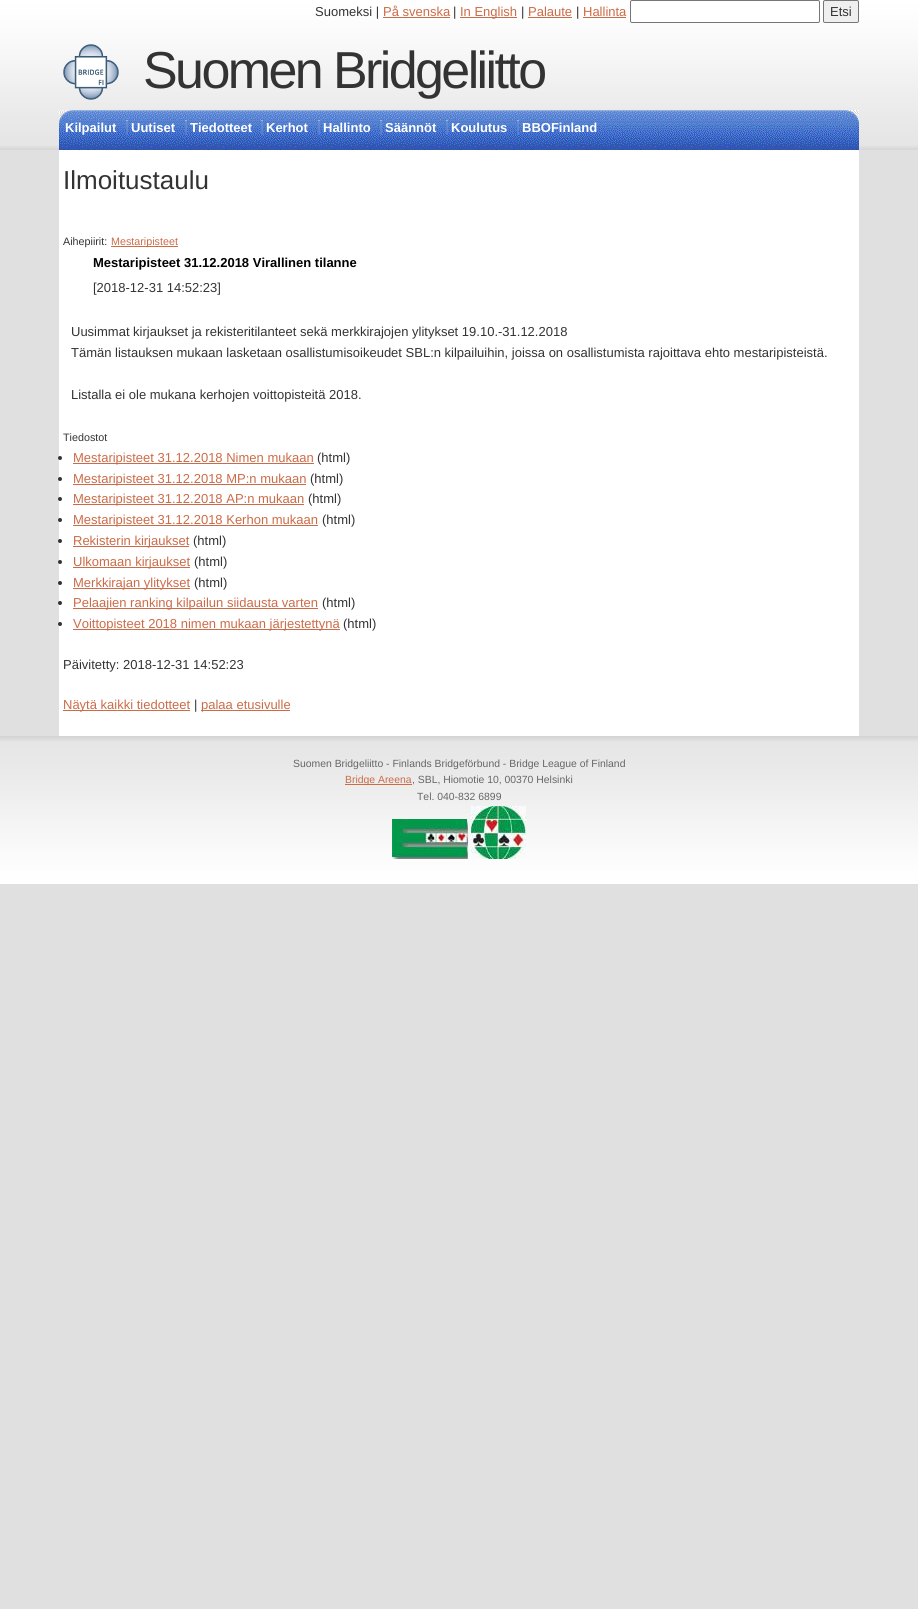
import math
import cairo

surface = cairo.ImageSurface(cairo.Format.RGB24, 918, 1609)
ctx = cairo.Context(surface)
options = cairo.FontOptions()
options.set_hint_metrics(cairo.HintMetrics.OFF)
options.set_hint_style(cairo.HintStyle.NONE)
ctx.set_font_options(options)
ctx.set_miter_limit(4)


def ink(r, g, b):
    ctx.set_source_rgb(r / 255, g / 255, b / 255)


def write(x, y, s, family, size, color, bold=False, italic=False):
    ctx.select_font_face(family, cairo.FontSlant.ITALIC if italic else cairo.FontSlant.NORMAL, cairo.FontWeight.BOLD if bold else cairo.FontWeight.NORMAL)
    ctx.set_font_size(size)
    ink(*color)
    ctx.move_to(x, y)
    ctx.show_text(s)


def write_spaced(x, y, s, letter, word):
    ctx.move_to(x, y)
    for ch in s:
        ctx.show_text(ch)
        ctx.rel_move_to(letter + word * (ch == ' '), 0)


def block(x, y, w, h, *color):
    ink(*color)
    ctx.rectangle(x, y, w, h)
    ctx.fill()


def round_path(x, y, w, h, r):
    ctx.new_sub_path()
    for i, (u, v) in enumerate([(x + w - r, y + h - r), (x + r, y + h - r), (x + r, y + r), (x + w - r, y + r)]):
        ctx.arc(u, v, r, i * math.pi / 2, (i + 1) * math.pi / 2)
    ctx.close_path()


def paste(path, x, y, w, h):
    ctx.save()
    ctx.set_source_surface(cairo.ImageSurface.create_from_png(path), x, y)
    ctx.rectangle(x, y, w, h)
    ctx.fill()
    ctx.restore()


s1 = dict(family="Liberation Sans", size=13, color=(51, 51, 51))
s2 = dict(family="Liberation Sans", size=13, color=(204, 107, 71))
s3 = dict(family="Liberation Sans", size=13, color=(255, 255, 255), bold=True)
s4 = dict(family="Liberation Sans", size=26, color=(51, 51, 51))
s5 = dict(family="Liberation Sans", size=10.75, color=(51, 51, 51))
s6 = dict(family="Liberation Sans", size=10.75, color=(204, 107, 71))
s7 = dict(family="Liberation Sans", size=13, color=(0, 0, 0), bold=True)
s8 = dict(family="Liberation Sans", size=10.4, color=(102, 102, 102))
s9 = dict(family="Liberation Sans", size=10.4, color=(204, 107, 71))

ink(224, 224, 224)
ctx.paint()
paste("pic1.png", 0, 0, 918, 150)
write(315, 16, "Suomeksi |", **s1)
write(383, 16, "På svenska", **s2)
block(383, 17, 67, 1, 204, 107, 71)
write(453, 16, "|", **s1)
block(460, 17, 57, 1, 204, 107, 71)
write(460, 16, "In English", **s2)
write(521, 16, "|", **s1)
write(528, 16, "Palaute", **s2)
block(528, 17, 44, 1, 204, 107, 71)
write(576, 16, "|", **s1)
write(583, 16, "Hallinta", **s2)
block(583, 17, 43, 1, 204, 107, 71)
ink(255, 255, 255)
round_path(630.5, 0.5, 189, 22, 1.5)
ctx.fill_preserve()
ink(118, 118, 118)
ctx.set_line_width(1)
ctx.stroke()
ink(239, 239, 239)
round_path(823.5, 0.5, 35, 22, 1.5)
ctx.fill_preserve()
ink(118, 118, 118)
ctx.stroke()
write(830, 16, "Etsi", **s1)
paste("pic2.png", 63, 44, 56, 56)
ctx.set_font_size(52)
write_spaced(143, 88, "Suomen Bridgeliitto", -2.6, 0)
paste("pic3.png", 59, 110, 800, 40)
write(65, 132, "Kilpailut", **s3)
paste("pic4.png", 126, 120, 2, 15)
write(131, 132, "Uutiset", **s3)
paste("pic4.png", 185, 120, 2, 15)
write(190, 132, "Tiedotteet", **s3)
paste("pic4.png", 261, 120, 2, 15)
write(266, 132, "Kerhot", **s3)
paste("pic4.png", 318, 120, 2, 15)
write(323, 132, "Hallinto", **s3)
paste("pic4.png", 380, 120, 2, 15)
write(385, 132, "Säännöt", **s3)
paste("pic4.png", 446, 120, 2, 15)
write(451, 132, "Koulutus", **s3)
paste("pic4.png", 517, 120, 2, 15)
write(522, 132, "BBOFinland", **s3)
block(59, 150, 800, 586, 255, 255, 255)
write(63, 189, "Ilmoitustaulu", **s4)
write(63, 245, "Aihepiirit:", **s5)
block(111, 246, 67, 1, 204, 107, 71)
write(111, 245, "Mestaripisteet", **s6)
write(93, 267, "Mestaripisteet 31.12.2018 Virallinen tilanne", **s7)
write(93, 292, "[2018-12-31 14:52:23]", **s1)
write(71, 336, "Uusimmat kirjaukset ja rekisteritilanteet sekä merkkirajojen ylitykset 19.10.-31.12.2018", **s1)
write(71, 357, "Tämän listauksen mukaan lasketaan osallistumisoikeudet SBL:n kilpailuihin, joissa on osallistumista rajoittava ehto mestaripisteistä.", **s1)
write(71, 399, "Listalla ei ole mukana kerhojen voittopisteitä 2018.", **s1)
write(63, 441, "Tiedostot", **s5)
ctx.new_path()
ctx.arc(60, 458, 2, 0, 2 * math.pi)
ctx.fill()
block(73, 463, 241, 1, 204, 107, 71)
write(73, 462, "Mestaripisteet 31.12.2018 Nimen mukaan", **s2)
write(317, 462, "(html)", **s1)
ctx.new_path()
ctx.arc(60, 479, 2, 0, 2 * math.pi)
ctx.fill()
block(73, 484, 233, 1, 204, 107, 71)
write(73, 483, "Mestaripisteet 31.12.2018 MP:n mukaan", **s2)
write(310, 483, "(html)", **s1)
ctx.new_path()
ctx.arc(60, 499, 2, 0, 2 * math.pi)
ctx.fill()
block(73, 504, 231, 1, 204, 107, 71)
write(73, 503, "Mestaripisteet 31.12.2018 AP:n mukaan", **s2)
write(308, 503, "(html)", **s1)
ctx.new_path()
ctx.arc(60, 520, 2, 0, 2 * math.pi)
ctx.fill()
block(73, 525, 245, 1, 204, 107, 71)
write(73, 524, "Mestaripisteet 31.12.2018 Kerhon mukaan", **s2)
write(322, 524, "(html)", **s1)
ctx.new_path()
ctx.arc(60, 541, 2, 0, 2 * math.pi)
ctx.fill()
block(73, 546, 116, 1, 204, 107, 71)
write(73, 545, "Rekisterin kirjaukset", **s2)
write(193, 545, "(html)", **s1)
ctx.new_path()
ctx.arc(60, 562, 2, 0, 2 * math.pi)
ctx.fill()
block(73, 567, 117, 1, 204, 107, 71)
write(73, 566, "Ulkomaan kirjaukset", **s2)
write(194, 566, "(html)", **s1)
ctx.new_path()
ctx.arc(60, 583, 2, 0, 2 * math.pi)
ctx.fill()
block(73, 588, 117, 1, 204, 107, 71)
write(73, 587, "Merkkirajan ylitykset", **s2)
write(194, 587, "(html)", **s1)
ctx.new_path()
ctx.arc(60, 603, 2, 0, 2 * math.pi)
ctx.fill()
block(73, 608, 245, 1, 204, 107, 71)
write(73, 607, "Pelaajien ranking kilpailun siidausta varten", **s2)
write(322, 607, "(html)", **s1)
ctx.new_path()
ctx.arc(60, 624, 2, 0, 2 * math.pi)
ctx.fill()
block(73, 629, 267, 1, 204, 107, 71)
write(73, 628, "Voittopisteet 2018 nimen mukaan järjestettynä", **s2)
write(343, 628, "(html)", **s1)
write(63, 669, "Päivitetty: 2018-12-31 14:52:23", **s1)
block(63, 710, 127, 1, 204, 107, 71)
write(63, 709, "Näytä kaikki tiedotteet", **s2)
write(194, 709, "|", **s1)
block(201, 710, 89, 1, 204, 107, 71)
write(201, 709, "palaa etusivulle", **s2)
paste("pic5.png", 0, 736, 918, 148)
write(293, 767, "Suomen Bridgeliitto - Finlands Bridgeförbund - Bridge League of Finland", **s8)
block(345, 784, 67, 1, 204, 107, 71)
write(345, 783, "Bridge Areena", **s9)
write(412, 783, ", SBL, Hiomotie 10, 00370 Helsinki", **s8)
write(417, 800, "Tel. 040-832 6899", **s8)
paste("pic6.png", 392, 819, 76, 40)
paste("pic7.png", 471, 806, 55, 53)
surface.write_to_png("screenshot.png")
